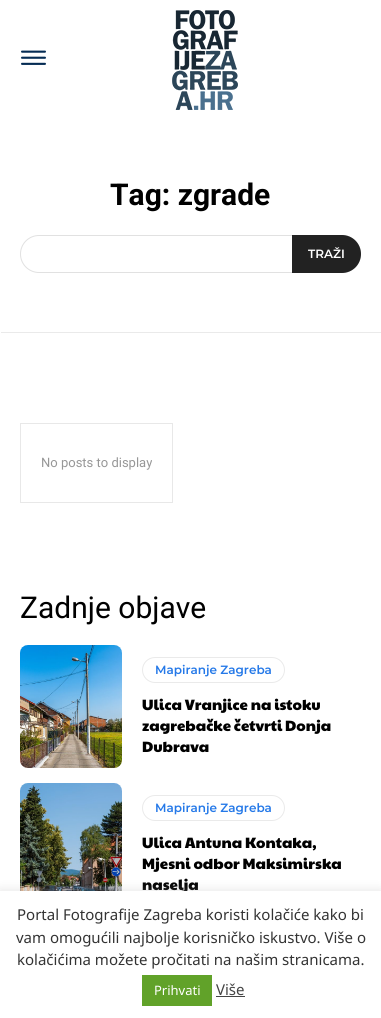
import math
import cairo

surface = cairo.ImageSurface(cairo.Format.RGB24, 381, 1018)
ctx = cairo.Context(surface)
options = cairo.FontOptions()
options.set_hint_metrics(cairo.HintMetrics.OFF)
options.set_hint_style(cairo.HintStyle.NONE)
ctx.set_font_options(options)
ctx.set_miter_limit(4)


def ink(r, g, b):
    ctx.set_source_rgb(r / 255, g / 255, b / 255)


def write(x, y, s, family, size, color, bold=False, italic=False):
    ctx.select_font_face(family, cairo.FontSlant.ITALIC if italic else cairo.FontSlant.NORMAL, cairo.FontWeight.BOLD if bold else cairo.FontWeight.NORMAL)
    ctx.set_font_size(size)
    ink(*color)
    ctx.move_to(x, y)
    ctx.show_text(s)


def block(x, y, w, h, *color):
    ink(*color)
    ctx.rectangle(x, y, w, h)
    ctx.fill()


def round_path(x, y, w, h, r):
    ctx.new_sub_path()
    for i, (u, v) in enumerate([(x + w - r, y + h - r), (x + r, y + h - r), (x + r, y + r), (x + w - r, y + r)]):
        ctx.arc(u, v, r, i * math.pi / 2, (i + 1) * math.pi / 2)
    ctx.close_path()


def blur_box(x, y, w, h, r, blur, alpha):
    ctx.push_group_with_content(cairo.Content.ALPHA)
    ctx.set_operator(cairo.Operator.SOURCE)
    for i in range(15, -16, -2):
        e = blur * i / 6
        if min(w, h) + 2 * e > 0:
            ctx.set_source_rgba(0, 0, 0, alpha * math.erfc((i - 1) / 8.5) / 2)
            round_path(x - e, y - e, w + 2 * e, h + 2 * e, max(0, min(r + e + blur * .6, min(w, h) / 2 + e)))
            ctx.fill()
    ctx.mask(ctx.pop_group())


def paste(path, x, y, w, h):
    ctx.save()
    ctx.set_source_surface(cairo.ImageSurface.create_from_png(path), x, y)
    ctx.rectangle(x, y, w, h)
    ctx.fill()
    ctx.restore()


s1 = dict(family="Roboto", size=30, color=(0, 0, 0), bold=True)
s2 = dict(family="Montserrat SemiBold", size=12, color=(255, 255, 255))
s3 = dict(family="Roboto", size=13, color=(151, 151, 151))
s4 = dict(family="Roboto", size=30, color=(0, 0, 0))
s5 = dict(family="Montserrat SemiBold", size=12, color=(37, 121, 232))
s6 = dict(family="Paytone One", size=15, color=(0, 0, 0))
s7 = dict(family="Noto Sans", size=15, color=(51, 51, 51))
s8 = dict(family="Noto Sans", size=13, color=(255, 255, 255))
s9 = dict(family="Noto Sans", size=15, color=(68, 68, 68))

ink(255, 255, 255)
ctx.paint()
paste("pic1.png", 21, 50, 25, 15)
paste("pic2.png", 172, 10, 66, 100)
write(110, 205, "Tag: zgrade", **s1)
round_path(20.5, 235.5, 340, 37, 18.5)
ink(225, 225, 225)
ctx.set_line_width(1)
ctx.stroke()
ink(34, 34, 34)
ctx.new_path()
ctx.move_to(292, 235)
ctx.line_to(342, 235)
ctx.curve_to(352.5, 235, 361, 243.5, 361, 254)
ctx.curve_to(361, 264.5, 352.5, 273, 342, 273)
ctx.line_to(292, 273)
ctx.close_path()
ctx.fill()
write(308, 258, "TRAŽI", **s2)
block(1, 332, 380, 1, 234, 234, 234)
ctx.rectangle(20.5, 423.5, 152, 79)
ink(232, 232, 232)
ctx.stroke()
write(41, 467, "No posts to display", **s3)
write(20, 618, "Zadnje objave", **s4)
paste("pic3.png", 20, 645, 102, 123)
round_path(142.5, 657.5, 142, 25, 12.5)
ink(234, 234, 234)
ctx.stroke()
write(155, 674, "Mapiranje Zagreba", **s5)
write(142, 710, "Ulica Vranjice na istoku", **s6)
write(142, 731, "zagrebačke četvrti Donja", **s6)
write(142, 752, "Dubrava", **s6)
paste("pic4.png", 20, 783, 102, 108)
round_path(142.5, 795.5, 142, 25, 12.5)
ink(234, 234, 234)
ctx.stroke()
write(155, 812, "Mapiranje Zagreba", **s5)
write(142, 848, "Ulica Antuna Kontaka,", **s6)
write(142, 869, "Mjesni odbor Maksimirska", **s6)
write(142, 890, "naselja", **s6)
ink(172, 171, 171)
blur_box(0, 890, 381, 127, 0, 5, 0.3)
block(0, 891, 381, 127, 255, 255, 255)
write(17, 920, "Portal Fotografije Zagreba koristi kolačiće kako bi", **s7)
write(16, 943, "vam omogućili najbolje korisničko iskustvo. Više o", **s7)
write(17, 965, "kolačićima možete pročitati na našim stranicama.", **s7)
block(142, 975, 70, 31, 97, 162, 41)
write(154, 995, "Prihvati", **s8)
write(216, 995, "Više", **s9)
block(216, 996, 29, 1, 68, 68, 68)
surface.write_to_png("screenshot.png")
